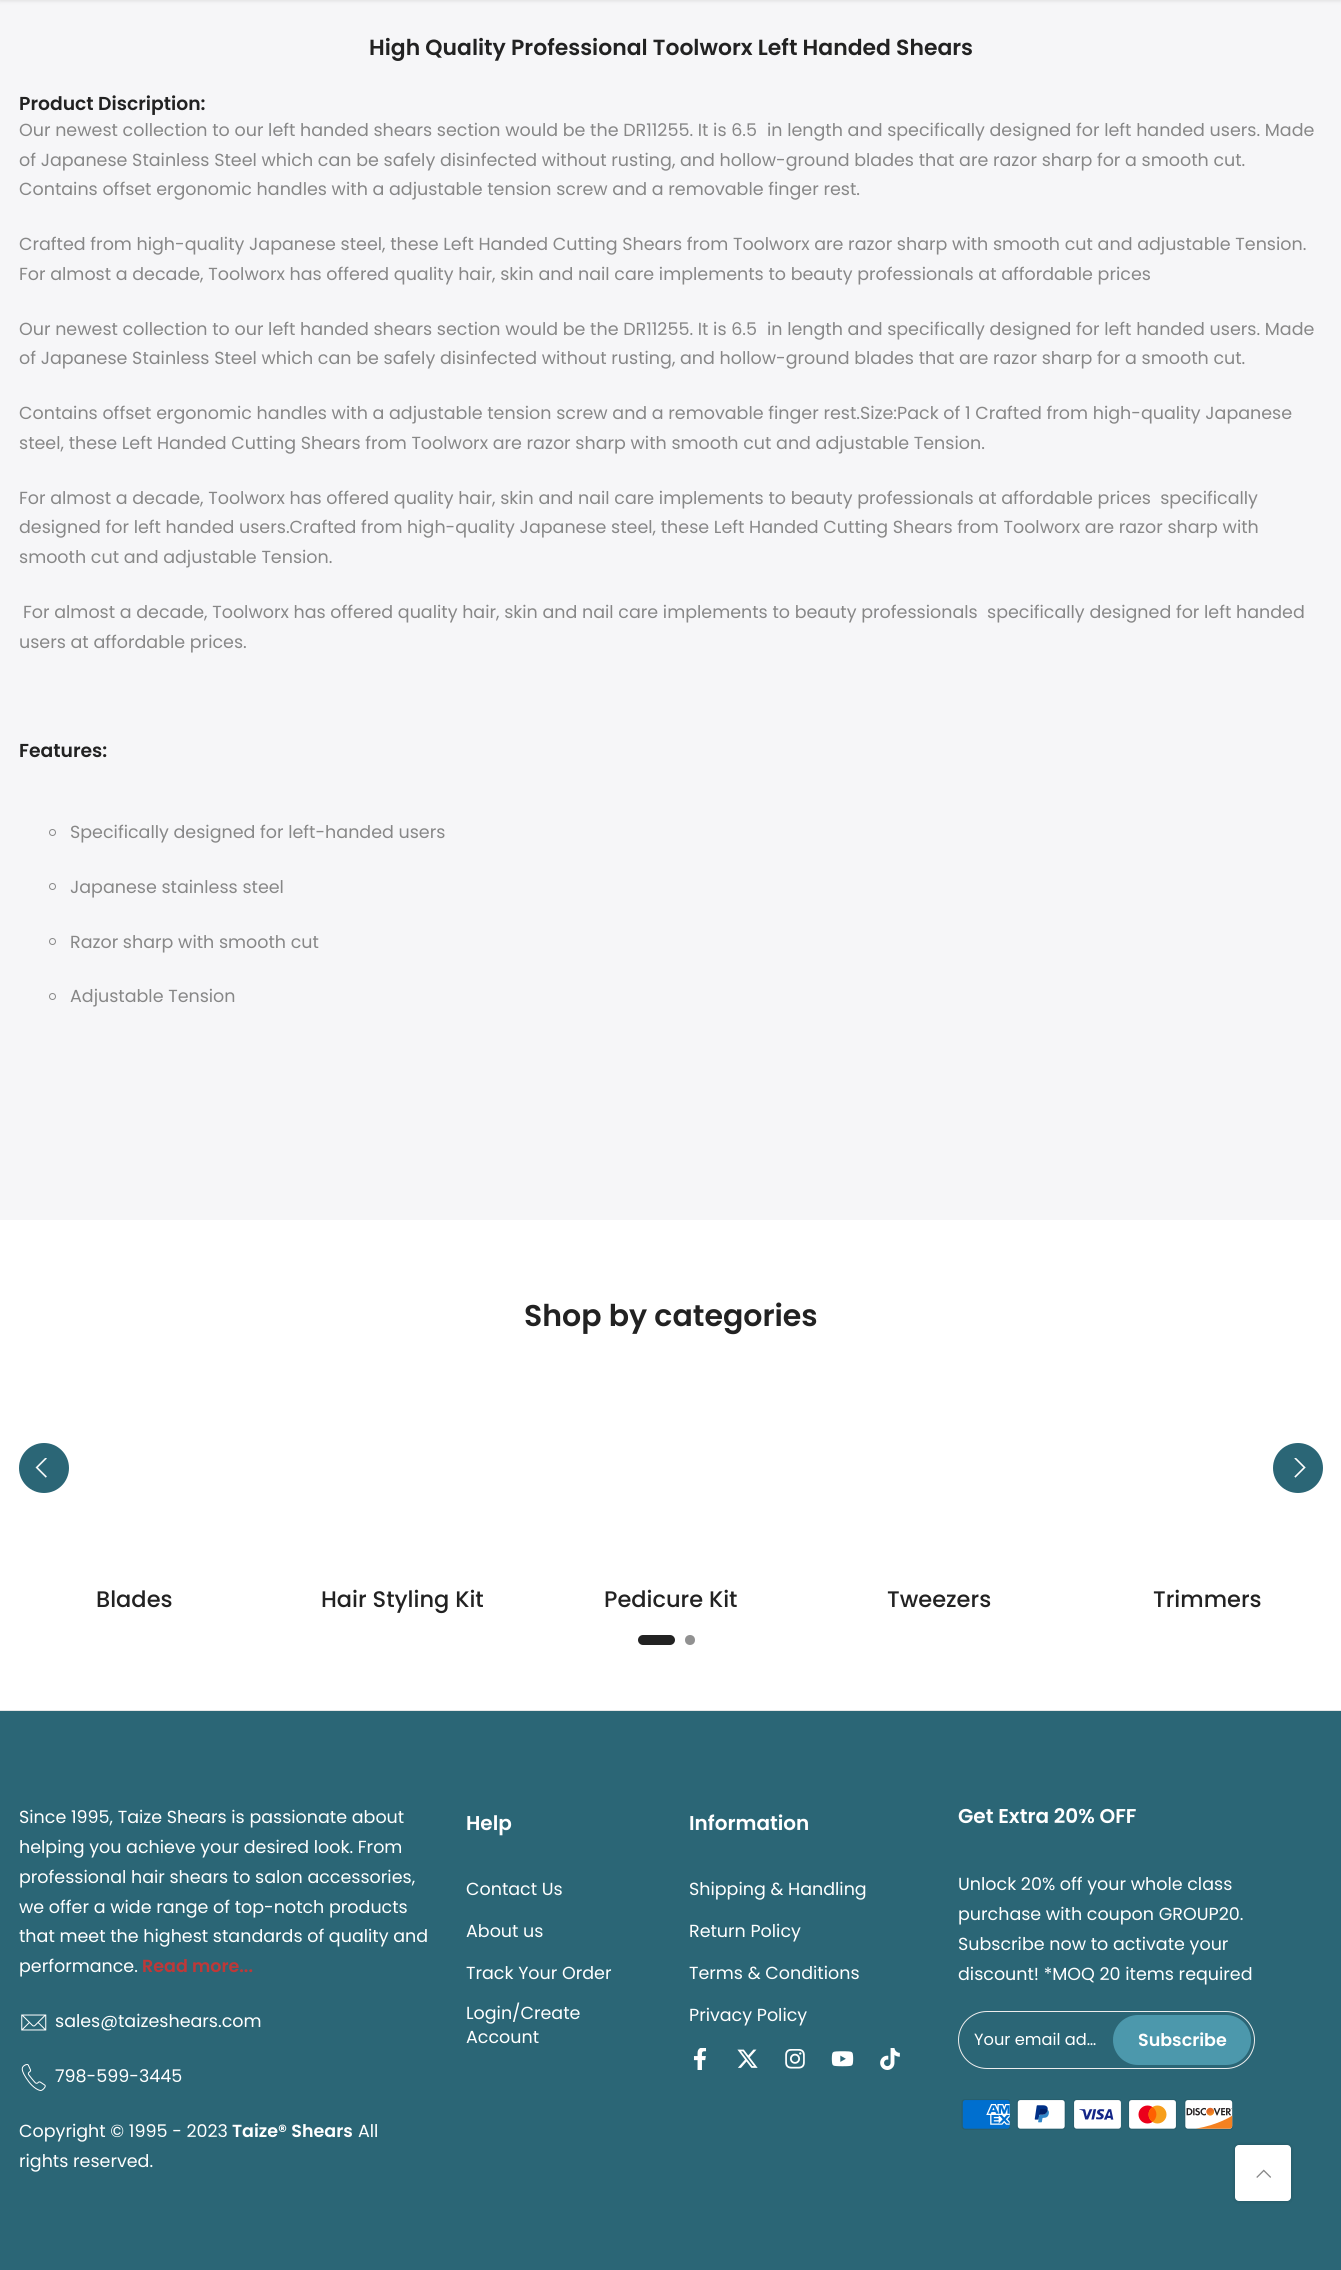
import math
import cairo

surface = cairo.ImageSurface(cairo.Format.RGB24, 1341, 2270)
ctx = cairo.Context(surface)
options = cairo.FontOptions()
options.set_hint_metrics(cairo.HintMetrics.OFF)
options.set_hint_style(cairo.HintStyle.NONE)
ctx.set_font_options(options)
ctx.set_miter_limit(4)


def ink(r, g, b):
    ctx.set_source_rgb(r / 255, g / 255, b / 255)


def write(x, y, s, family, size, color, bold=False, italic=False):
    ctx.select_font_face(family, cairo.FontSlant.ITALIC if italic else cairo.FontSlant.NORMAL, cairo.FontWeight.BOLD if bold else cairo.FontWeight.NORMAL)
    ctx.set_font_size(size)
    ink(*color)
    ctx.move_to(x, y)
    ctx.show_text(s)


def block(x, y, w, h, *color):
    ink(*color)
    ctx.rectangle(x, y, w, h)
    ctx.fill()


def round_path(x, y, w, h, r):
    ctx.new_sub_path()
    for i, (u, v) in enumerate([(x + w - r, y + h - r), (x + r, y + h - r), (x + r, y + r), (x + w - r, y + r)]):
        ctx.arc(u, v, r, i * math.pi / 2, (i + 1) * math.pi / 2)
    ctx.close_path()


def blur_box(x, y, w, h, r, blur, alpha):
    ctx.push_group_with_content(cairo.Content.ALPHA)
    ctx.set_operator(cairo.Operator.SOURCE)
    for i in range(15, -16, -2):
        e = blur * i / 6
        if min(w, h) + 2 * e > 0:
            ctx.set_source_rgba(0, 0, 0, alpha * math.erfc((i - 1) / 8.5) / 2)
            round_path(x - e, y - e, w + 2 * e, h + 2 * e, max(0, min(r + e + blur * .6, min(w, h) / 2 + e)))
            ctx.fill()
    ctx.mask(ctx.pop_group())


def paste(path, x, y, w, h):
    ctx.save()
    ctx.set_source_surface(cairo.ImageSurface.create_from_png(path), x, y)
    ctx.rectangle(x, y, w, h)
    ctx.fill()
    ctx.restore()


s1 = dict(family="Poppins SemiBold", size=21.9, color=(34, 34, 34))
s2 = dict(family="Poppins SemiBold", size=18.75, color=(34, 34, 34))
s3 = dict(family="Poppins", size=17.5, color=(135, 135, 135))
s4 = dict(family="Poppins SemiBold", size=30, color=(34, 34, 34))
s5 = dict(family="Poppins Medium", size=22.5, color=(34, 34, 34))
s6 = dict(family="Poppins", size=17.5, color=(255, 255, 255))
s7 = dict(family="Poppins SemiBold", size=17.5, color=(191, 56, 56))
s8 = dict(family="Poppins SemiBold", size=17.5, color=(255, 255, 255))
s9 = dict(family="Poppins SemiBold", size=20, color=(255, 255, 255))
s10 = dict(family="Poppins", size=16.25, color=(255, 255, 255))

ink(255, 255, 255)
ctx.paint()
block(0, 0, 1341, 1220, 246, 246, 248)
ink(0, 0, 0)
blur_box(0, -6, 1341, 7, 0, 2, 0.1)
write(369, 55, "High Quality Professional Toolworx Left Handed Shears", **s1)
write(19, 110, "Product Discription:", **s2)
write(19, 136, "Our newest collection to our left handed shears section would be the DR11255. It is 6.5", **s3)
write(767, 136, "in length and specifically designed for left handed users. Made", **s3)
write(19, 166, "of Japanese Stainless Steel which can be safely disinfected without rusting, and hollow-ground blades that are razor sharp for a smooth cut.", **s3)
write(19, 195, "Contains offset ergonomic handles with a adjustable tension screw and a removable finger rest.", **s3)
write(19, 250, "Crafted from high-quality Japanese steel, these Left Handed Cutting Shears from Toolworx are razor sharp with smooth cut and adjustable Tension.", **s3)
write(19, 280, "For almost a decade, Toolworx has offered quality hair, skin and nail care implements to beauty professionals at affordable prices", **s3)
write(19, 335, "Our newest collection to our left handed shears section would be the DR11255. It is 6.5", **s3)
write(767, 335, "in length and specifically designed for left handed users. Made", **s3)
write(19, 364, "of Japanese Stainless Steel which can be safely disinfected without rusting, and hollow-ground blades that are razor sharp for a smooth cut.", **s3)
write(19, 419, "Contains offset ergonomic handles with a adjustable tension screw and a removable finger rest.Size:Pack of 1 Crafted from high-quality Japanese", **s3)
write(19, 449, "steel, these Left Handed Cutting Shears from Toolworx are razor sharp with smooth cut and adjustable Tension.", **s3)
write(19, 504, "For almost a decade, Toolworx has offered quality hair, skin and nail care implements to beauty professionals at affordable prices  specifically", **s3)
write(19, 533, "designed for left handed users.Crafted from high-quality Japanese steel, these Left Handed Cutting Shears from Toolworx are razor sharp with", **s3)
write(19, 563, "smooth cut and adjustable Tension.", **s3)
write(23, 618, "For almost a decade, Toolworx has offered quality hair, skin and nail care implements to beauty professionals  specifically designed for left handed", **s3)
write(19, 648, "users at affordable prices.", **s3)
write(19, 757, "Features:", **s2)
ctx.new_path()
ctx.arc(52.5, 832.5, 3, 0, 2 * math.pi)
ink(135, 135, 135)
ctx.set_line_width(1)
ctx.stroke()
write(70, 838, "Specifically designed for left-handed users", **s3)
ctx.new_path()
ctx.arc(52.5, 886.5, 3, 0, 2 * math.pi)
ctx.stroke()
write(70, 893, "Japanese stainless steel", **s3)
ctx.new_path()
ctx.arc(52.5, 941.5, 3, 0, 2 * math.pi)
ctx.stroke()
write(70, 948, "Razor sharp with smooth cut", **s3)
ctx.new_path()
ctx.arc(52.5, 996.5, 3, 0, 2 * math.pi)
ctx.stroke()
write(70, 1002, "Adjustable Tension", **s3)
write(524, 1326, "Shop by categories", **s4)
ink(43, 102, 118)
ctx.new_path()
ctx.arc(44, 1468, 25, 0, 2 * math.pi)
ctx.fill()
paste("pic1.png", 35, 1458, 12, 20)
ctx.arc(1298, 1468, 25, 0, 2 * math.pi)
ctx.fill()
paste("pic2.png", 1294, 1458, 12, 20)
write(96, 1607, "Blades", **s5)
write(321, 1607, "Hair Styling Kit", **s5)
write(604, 1607, "Pedicure Kit", **s5)
write(887, 1607, "Tweezers", **s5)
write(1153, 1607, "Trimmers", **s5)
round_path(638, 1635, 37, 10, 5)
ctx.fill()
ink(145, 145, 145)
ctx.arc(690, 1640, 5, 0, 2 * math.pi)
ctx.fill()
block(0, 1711, 1341, 559, 43, 102, 118)
block(0, 1710, 1341, 1, 230, 230, 230)
write(19, 1823, "Since 1995, Taize Shears is passionate about", **s6)
write(19, 1853, "helping you achieve your desired look. From", **s6)
write(19, 1883, "professional hair shears to salon accessories,", **s6)
write(19, 1913, "we offer a wide range of top-notch products", **s6)
write(19, 1942, "that meet the highest standards of quality and", **s6)
write(19, 1972, "performance.", **s6)
write(142, 1972, "Read more...", **s7)
paste("pic3.png", 21, 2014, 26, 17)
write(55, 2027, "sales@taizeshears.com", **s6)
paste("pic4.png", 21, 2064, 25, 27)
write(55, 2082, "798-599-3445", **s6)
write(19, 2137, "Copyright © 1995 - 2023", **s6)
write(232, 2137, "Taize® Shears", **s8)
write(358, 2137, "All", **s6)
write(19, 2167, "rights reserved.", **s6)
write(466, 1830, "Help", **s9)
write(466, 1895, "Contact Us", **s6)
write(466, 1937, "About us", **s6)
write(466, 1979, "Track Your Order", **s6)
write(466, 2019, "Login/Create", **s6)
write(466, 2043, "Account", **s6)
write(689, 1830, "Information", **s9)
write(689, 1895, "Shipping & Handling", **s6)
write(689, 1937, "Return Policy", **s6)
write(689, 1979, "Terms & Conditions", **s6)
write(689, 2021, "Privacy Policy", **s6)
paste("pic5.png", 693, 2048, 14, 22)
paste("pic6.png", 737, 2049, 21, 19)
paste("pic7.png", 785, 2049, 20, 20)
paste("pic8.png", 831, 2051, 23, 16)
paste("pic9.png", 880, 2048, 20, 22)
write(958, 1823, "Get Extra 20% OFF", **s9)
write(958, 1890, "Unlock 20% off your whole class", **s6)
write(958, 1920, "purchase with coupon GROUP20.", **s6)
write(958, 1950, "Subscribe now to activate your", **s6)
write(958, 1980, "discount! *MOQ 20 items required", **s6)
round_path(958.5, 2011.5, 296, 57, 28.5)
ink(237, 237, 237)
ctx.stroke()
write(974, 2045, "Your email ad…", **s10)
ink(76, 152, 172)
round_path(1113, 2015, 138, 50, 25)
ctx.fill()
write(1138, 2046, "Subscribe", **s8)
paste("pic10.png", 961, 2099, 49, 31)
paste("pic11.png", 1016, 2099, 50, 31)
paste("pic12.png", 1073, 2099, 48, 31)
paste("pic13.png", 1128, 2099, 49, 31)
paste("pic14.png", 1184, 2099, 49, 31)
ink(0, 0, 0)
blur_box(1235, 2145, 56, 56, 4, 2, 0.2)
ink(255, 255, 255)
round_path(1235, 2145, 56, 56, 4)
ctx.fill()
paste("pic15.png", 1256, 2169, 15, 9)
surface.write_to_png("screenshot.png")
